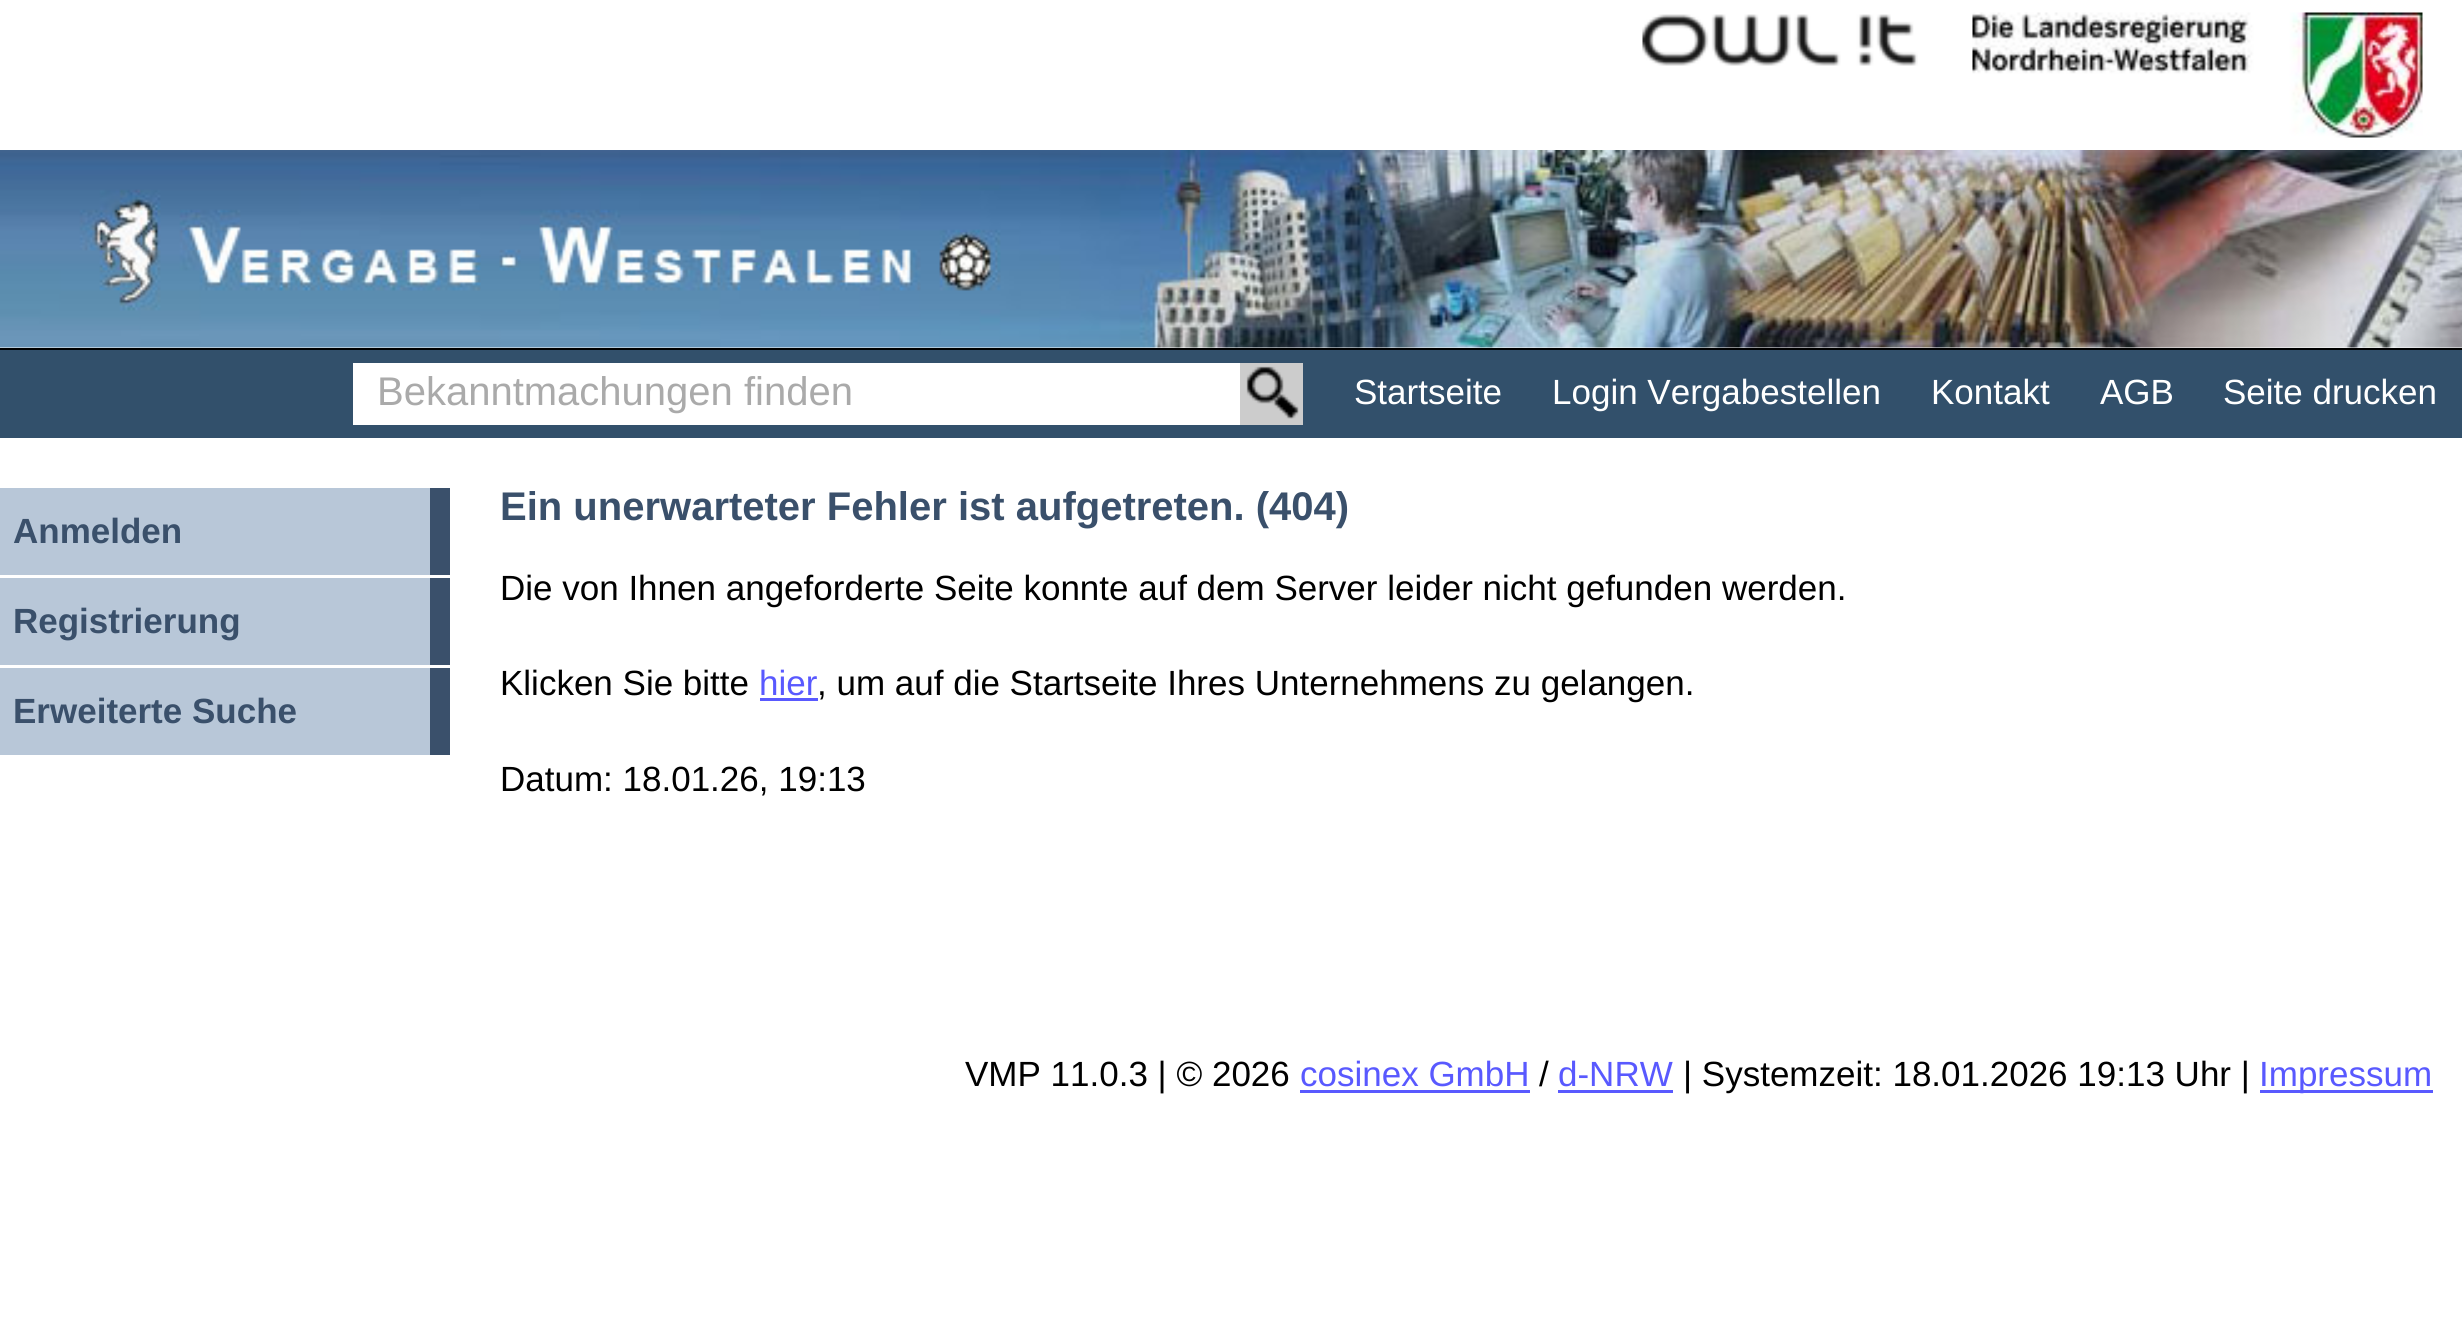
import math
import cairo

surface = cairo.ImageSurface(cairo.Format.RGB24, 2462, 1334)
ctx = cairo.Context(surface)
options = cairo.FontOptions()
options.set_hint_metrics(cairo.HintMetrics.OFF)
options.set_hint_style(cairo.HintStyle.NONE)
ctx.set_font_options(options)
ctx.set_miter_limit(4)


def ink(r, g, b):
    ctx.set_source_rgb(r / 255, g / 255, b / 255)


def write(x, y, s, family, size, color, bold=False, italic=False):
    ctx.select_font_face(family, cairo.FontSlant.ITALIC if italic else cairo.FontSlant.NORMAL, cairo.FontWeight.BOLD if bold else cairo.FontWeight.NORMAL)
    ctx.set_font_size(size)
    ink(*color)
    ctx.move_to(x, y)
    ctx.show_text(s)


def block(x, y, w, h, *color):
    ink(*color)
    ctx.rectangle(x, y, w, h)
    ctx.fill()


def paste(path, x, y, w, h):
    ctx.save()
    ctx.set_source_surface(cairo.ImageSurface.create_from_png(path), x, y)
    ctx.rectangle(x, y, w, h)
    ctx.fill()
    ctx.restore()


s1 = dict(family="Liberation Sans", size=40, color=(170, 170, 170))
s2 = dict(family="Liberation Sans", size=35, color=(255, 255, 255))
s3 = dict(family="Liberation Sans", size=35, color=(58, 80, 107), bold=True)
s4 = dict(family="Liberation Sans", size=40, color=(58, 80, 107), bold=True)
s5 = dict(family="Liberation Sans", size=35, color=(0, 0, 0))
s6 = dict(family="Liberation Sans", size=35, color=(89, 89, 255))

ink(255, 255, 255)
ctx.paint()
paste("pic1.png", 0, 150, 2462, 198)
block(0, 348, 2462, 2, 0, 0, 0)
paste("pic2.png", 1642, 14, 276, 52)
paste("pic3.png", 1972, 12, 451, 126)
block(0, 350, 2462, 88, 50, 80, 107)
block(353, 363, 887, 62, 255, 255, 255)
write(377, 405, "Bekanntmachungen finden", **s1)
block(1240, 363, 63, 62, 204, 204, 204)
paste("pic4.png", 1246, 366, 53, 53)
write(1354, 404, "Startseite", **s2)
write(1552, 404, "Login Vergabestellen", **s2)
write(1931, 404, "Kontakt", **s2)
write(2100, 404, "AGB", **s2)
write(2223, 404, "Seite drucken", **s2)
block(0, 488, 430, 87, 184, 199, 216)
block(430, 488, 20, 87, 58, 80, 107)
write(13, 543, "Anmelden", **s3)
block(0, 578, 430, 87, 184, 199, 216)
block(430, 578, 20, 87, 58, 80, 107)
write(13, 633, "Registrierung", **s3)
block(0, 668, 430, 87, 184, 199, 216)
block(430, 668, 20, 87, 58, 80, 107)
write(13, 723, "Erweiterte Suche", **s3)
write(500, 520, "Ein unerwarteter Fehler ist aufgetreten. (404)", **s4)
write(500, 600, "Die von Ihnen angeforderte Seite konnte auf dem Server leider nicht gefunden werden.", **s5)
write(500, 695, "Klicken Sie bitte", **s5)
write(759, 695, "hier", **s6)
block(760, 698, 58, 3, 89, 89, 255)
write(817, 695, ", um auf die Startseite Ihres Unternehmens zu gelangen.", **s5)
write(500, 791, "Datum: 18.01.26, 19:13", **s5)
write(965, 1086, "VMP 11.0.3 | © 2026", **s5)
write(1300, 1086, "cosinex GmbH", **s6)
block(1300, 1090, 230, 3, 89, 89, 255)
write(1539, 1086, "/", **s5)
write(1558, 1086, "d-NRW", **s6)
block(1558, 1090, 115, 3, 89, 89, 255)
write(1683, 1086, "| Systemzeit: 18.01.2026 19:13 Uhr |", **s5)
block(2260, 1090, 173, 3, 89, 89, 255)
write(2259, 1086, "Impressum", **s6)
surface.write_to_png("screenshot.png")
